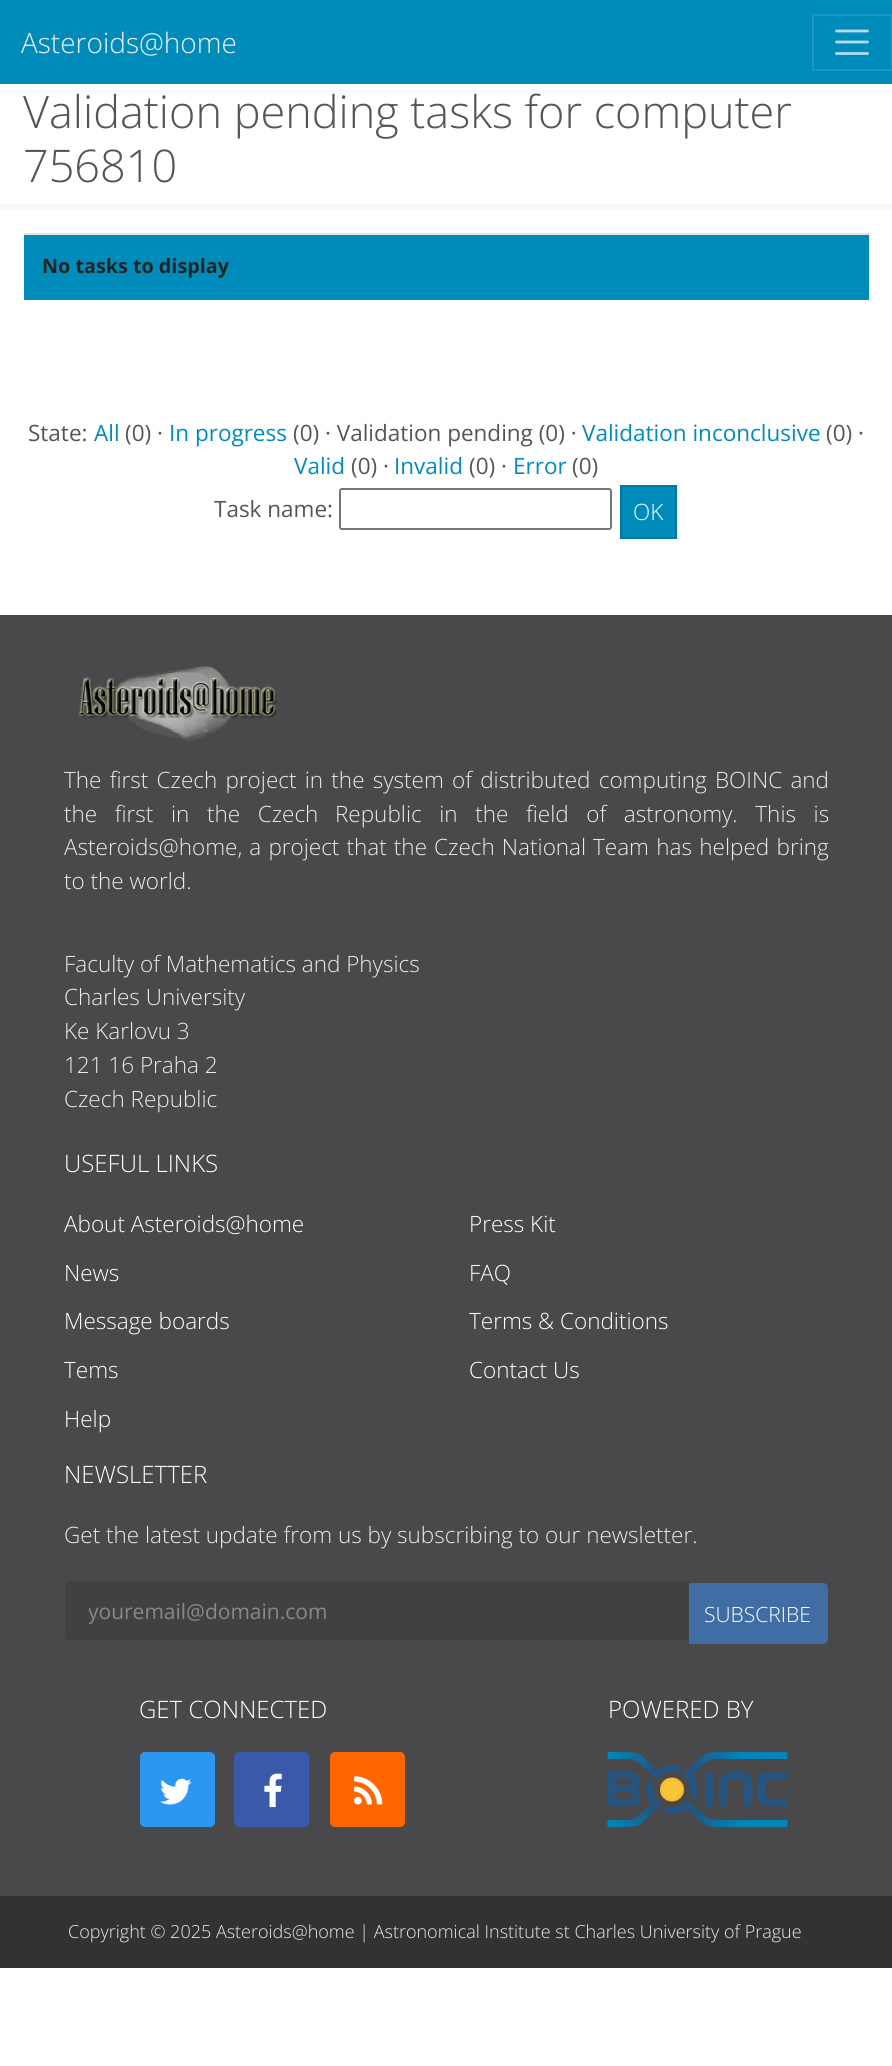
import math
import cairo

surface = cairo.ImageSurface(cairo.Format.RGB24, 892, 2066)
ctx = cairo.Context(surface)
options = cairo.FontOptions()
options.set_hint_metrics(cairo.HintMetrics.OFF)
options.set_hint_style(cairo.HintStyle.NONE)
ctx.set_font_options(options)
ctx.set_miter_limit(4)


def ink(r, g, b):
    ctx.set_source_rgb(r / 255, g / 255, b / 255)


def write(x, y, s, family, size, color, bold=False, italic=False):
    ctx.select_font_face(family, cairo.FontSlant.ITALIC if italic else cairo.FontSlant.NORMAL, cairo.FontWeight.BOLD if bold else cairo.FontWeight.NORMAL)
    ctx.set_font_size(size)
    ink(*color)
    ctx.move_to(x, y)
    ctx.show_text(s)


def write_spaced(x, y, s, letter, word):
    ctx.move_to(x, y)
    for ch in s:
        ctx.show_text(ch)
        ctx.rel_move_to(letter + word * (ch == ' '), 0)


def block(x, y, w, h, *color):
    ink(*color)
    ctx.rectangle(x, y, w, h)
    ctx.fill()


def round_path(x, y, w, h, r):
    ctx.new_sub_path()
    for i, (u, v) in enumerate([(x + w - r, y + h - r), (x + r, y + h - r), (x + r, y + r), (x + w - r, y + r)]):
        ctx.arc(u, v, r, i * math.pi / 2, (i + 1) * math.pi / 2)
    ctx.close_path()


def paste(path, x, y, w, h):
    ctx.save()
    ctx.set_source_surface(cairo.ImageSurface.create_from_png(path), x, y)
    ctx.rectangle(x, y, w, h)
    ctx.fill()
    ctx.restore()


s1 = dict(family="Open Sans Light", size=28, color=(242, 242, 242))
s2 = dict(family="Open Sans Light", size=45, color=(85, 85, 85))
s3 = dict(family="Open Sans", size=19.75, color=(34, 34, 34), bold=True)
s4 = dict(family="Open Sans", size=22.5, color=(85, 85, 85))
s5 = dict(family="Open Sans", size=22.5, color=(0, 140, 186))
s6 = dict(family="Open Sans Light", size=22.5, color=(255, 255, 255))
s7 = dict(family="Open Sans Light", size=22.5, color=(234, 234, 234))
s8 = dict(family="Open Sans Light", size=24, color=(255, 255, 255))
s9 = dict(family="Open Sans", size=21, color=(136, 136, 136))
s10 = dict(family="Open Sans Light", size=21, color=(255, 255, 255))
s11 = dict(family="Open Sans Light", size=18, color=(234, 234, 234))

ink(255, 255, 255)
ctx.paint()
block(0, 0, 892, 84, 0, 140, 186)
write(21, 53, "Asteroids@home", **s1)
ctx.rectangle(813, 15, 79, 55)
ink(26, 152, 193)
ctx.stroke()
ctx.new_path()
ctx.move_to(836.5, 31)
ctx.line_to(867.5, 31)
ctx.move_to(836.5, 42)
ctx.line_to(867.5, 42)
ctx.move_to(836.5, 53.5)
ctx.line_to(867.5, 53.5)
ink(179, 221, 234)
ctx.set_line_width(2.8)
ctx.set_line_cap(cairo.LineCap.ROUND)
ctx.stroke()
write(23, 128, "Validation pending tasks for computer", **s2)
write(23, 182, "756810", **s2)
block(0, 204, 892, 5, 248, 249, 250)
block(24, 235, 845, 65, 0, 140, 186)
block(24, 233, 845, 2, 222, 226, 230)
write(42, 273, "No tasks to display", **s3)
write(28, 441, "State:", **s4)
write(94, 441, "All", **s5)
write(125, 441, "(0) ·", **s4)
write(169, 441, "In progress", **s5)
write(293, 441, "(0) · Validation pending (0) ·", **s4)
write(582, 441, "Validation inconclusive", **s5)
write(826, 441, "(0) ·", **s4)
write(294, 474, "Valid", **s5)
write(351, 474, "(0) ·", **s4)
write(394, 474, "Invalid", **s5)
write(469, 474, "(0) ·", **s4)
write(513, 474, "Error", **s5)
write(572, 474, "(0)", **s4)
write(214, 517, "Task name:", **s4)
round_path(340, 489, 271, 40, 2)
ink(118, 118, 118)
ctx.set_line_width(2)
ctx.set_line_cap(cairo.LineCap.BUTT)
ctx.stroke()
ink(0, 140, 186)
ctx.rectangle(621, 486, 55, 52)
ctx.fill_preserve()
ink(0, 121, 161)
ctx.stroke()
write(633, 520, "OK", **s6)
block(0, 615, 892, 1281, 73, 73, 75)
paste("pic1.png", 78, 666, 199, 75)
ink(234, 234, 234)
write_spaced(64, 788, "The first Czech project in the system of distributed computing BOINC and", 0, 2.4)
write_spaced(64, 822, "the first in the Czech", 0, 11.75)
write_spaced(335, 822, "Republic in the field of astronomy. This is", 0, 11.75)
write_spaced(64, 855, "Asteroids@home, a project that the Czech National", 0, 1.25)
write_spaced(593, 855, "Team has helped bring", 0, 1.5)
write(64, 889, "to the world.", **s7)
write(64, 972, "Faculty of Mathematics and Physics", **s7)
write(64, 1005, "Charles University", **s7)
write(64, 1039, "Ke Karlovu 3", **s7)
write(64, 1073, "121 16 Praha 2", **s7)
write(64, 1107, "Czech Republic", **s7)
write(64, 1172, "USEFUL LINKS", **s8)
write(64, 1232, "About Asteroids@home", **s6)
write(64, 1281, "News", **s6)
write(64, 1329, "Message boards", **s6)
write(64, 1378, "Tems", **s6)
write(64, 1427, "Help", **s6)
write(469, 1232, "Press Kit", **s6)
write(469, 1281, "FAQ", **s6)
write(469, 1329, "Terms & Conditions", **s6)
write(469, 1378, "Contact Us", **s6)
write(64, 1483, "NEWSLETTER", **s8)
write(64, 1543, "Get the latest update from us by subscribing to our newsletter.", **s7)
ink(65, 65, 67)
ctx.new_path()
ctx.move_to(70, 1581)
ctx.line_to(689, 1581)
ctx.line_to(689, 1640)
ctx.line_to(70, 1640)
ctx.curve_to(67, 1640, 65, 1638, 65, 1635)
ctx.line_to(65, 1586)
ctx.curve_to(65, 1583, 67, 1581, 70, 1581)
ctx.close_path()
ctx.fill()
ctx.save()
ctx.rectangle(89, 1596, 576, 29)
ctx.clip()
write(88, 1619, "youremail@domain.com", **s9)
ctx.restore()
ink(64, 109, 164)
ctx.new_path()
ctx.move_to(689, 1583)
ctx.line_to(823, 1583)
ctx.curve_to(826, 1583, 828, 1585, 828, 1588)
ctx.line_to(828, 1639)
ctx.curve_to(828, 1642, 826, 1644, 823, 1644)
ctx.line_to(689, 1644)
ctx.close_path()
ctx.fill()
write(704, 1622, "SUBSCRIBE", **s10)
write(139, 1718, "GET CONNECTED", **s8)
ink(43, 151, 240)
round_path(140, 1752, 75, 75, 5)
ctx.fill()
paste("pic2.png", 160, 1778, 32, 27)
ink(59, 89, 171)
round_path(234, 1752, 75, 75, 5)
ctx.fill()
paste("pic3.png", 264, 1773, 18, 35)
ink(255, 102, 0)
round_path(330, 1752, 75, 75, 5)
ctx.fill()
paste("pic4.png", 354, 1776, 29, 29)
write(608, 1718, "POWERED BY", **s8)
paste("pic5.png", 607, 1752, 181, 75)
block(0, 1896, 892, 72, 50, 50, 50)
write(68, 1938, "Copyright © 2025 Asteroids@home | Astronomical Institute st Charles University of Prague", **s11)
surface.write_to_png("screenshot.png")
